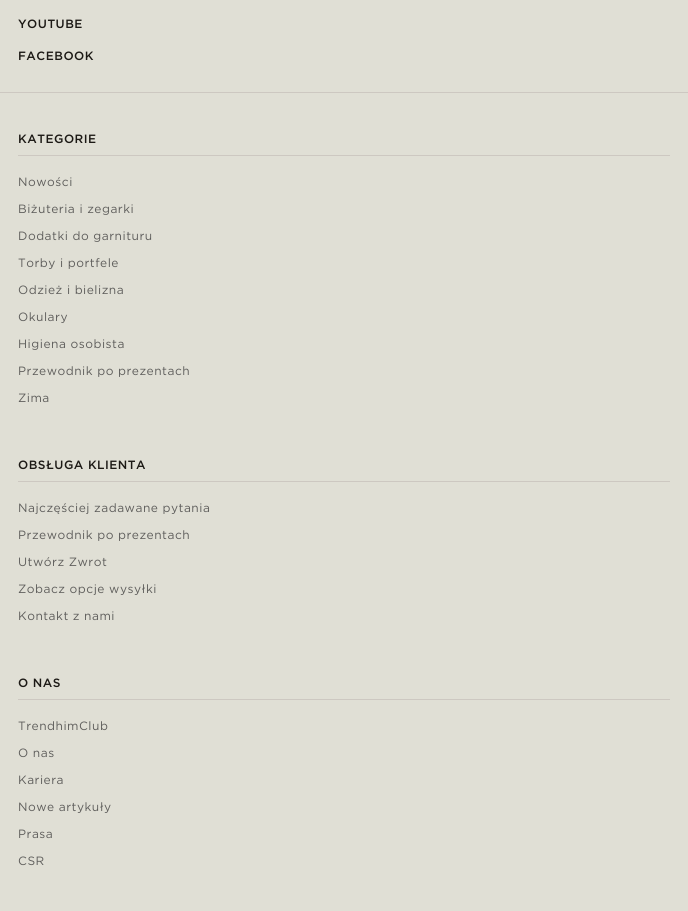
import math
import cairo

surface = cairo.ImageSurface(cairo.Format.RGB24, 688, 911)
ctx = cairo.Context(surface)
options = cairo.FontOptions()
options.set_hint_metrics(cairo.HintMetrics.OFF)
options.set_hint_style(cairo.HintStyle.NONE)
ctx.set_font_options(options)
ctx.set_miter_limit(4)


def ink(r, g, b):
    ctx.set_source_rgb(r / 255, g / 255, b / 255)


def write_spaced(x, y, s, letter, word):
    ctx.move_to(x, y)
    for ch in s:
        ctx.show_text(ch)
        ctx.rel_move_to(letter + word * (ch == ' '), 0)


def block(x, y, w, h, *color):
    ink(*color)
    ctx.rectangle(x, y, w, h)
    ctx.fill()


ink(224, 223, 213)
ctx.paint()
block(0, 92, 688, 1, 205, 200, 193)
ctx.select_font_face("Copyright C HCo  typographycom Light")
ctx.set_font_size(12)
ink(28, 25, 21)
write_spaced(18, 28, "YOUTUBE", 0.5, 0)
write_spaced(18, 60, "FACEBOOK", 0.5, 0)
block(18, 155, 652, 1, 205, 200, 193)
ink(28, 25, 21)
write_spaced(18, 143, "KATEGORIE", 0.5, 0)
ctx.select_font_face("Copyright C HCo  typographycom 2 Light")
ink(94, 93, 91)
write_spaced(18, 186, "Nowości", 0.5, 0)
write_spaced(18, 213, "Biżuteria i zegarki", 0.5, 0)
write_spaced(18, 240, "Dodatki do garnituru", 0.5, 0)
write_spaced(18, 267, "Torby i portfele", 0.5, 0)
write_spaced(18, 294, "Odzież i bielizna", 0.5, 0)
write_spaced(18, 321, "Okulary", 0.5, 0)
write_spaced(18, 348, "Higiena osobista", 0.5, 0)
write_spaced(18, 375, "Przewodnik po prezentach", 0.5, 0)
write_spaced(18, 402, "Zima", 0.5, 0)
block(18, 481, 652, 1, 205, 200, 193)
ctx.select_font_face("Copyright C HCo  typographycom Light")
ink(28, 25, 21)
write_spaced(18, 469, "OBSŁUGA KLIENTA", 0.5, 0)
ctx.select_font_face("Copyright C HCo  typographycom 2 Light")
ink(94, 93, 91)
write_spaced(18, 512, "Najczęściej zadawane pytania", 0.5, 0)
write_spaced(18, 539, "Przewodnik po prezentach", 0.5, 0)
write_spaced(18, 566, "Utwórz Zwrot", 0.5, 0)
write_spaced(18, 593, "Zobacz opcje wysyłki", 0.5, 0)
write_spaced(18, 620, "Kontakt z nami", 0.5, 0)
block(18, 699, 652, 1, 205, 200, 193)
ctx.select_font_face("Copyright C HCo  typographycom Light")
ink(28, 25, 21)
write_spaced(18, 687, "O NAS", 0.5, 0)
ctx.select_font_face("Copyright C HCo  typographycom 2 Light")
ink(94, 93, 91)
write_spaced(18, 730, "TrendhimClub", 0.5, 0)
write_spaced(18, 757, "O nas", 0.5, 0)
write_spaced(18, 784, "Kariera", 0.5, 0)
write_spaced(18, 811, "Nowe artykuły", 0.5, 0)
write_spaced(18, 838, "Prasa", 0.5, 0)
write_spaced(18, 865, "CSR", 0.5, 0)
surface.write_to_png("screenshot.png")
